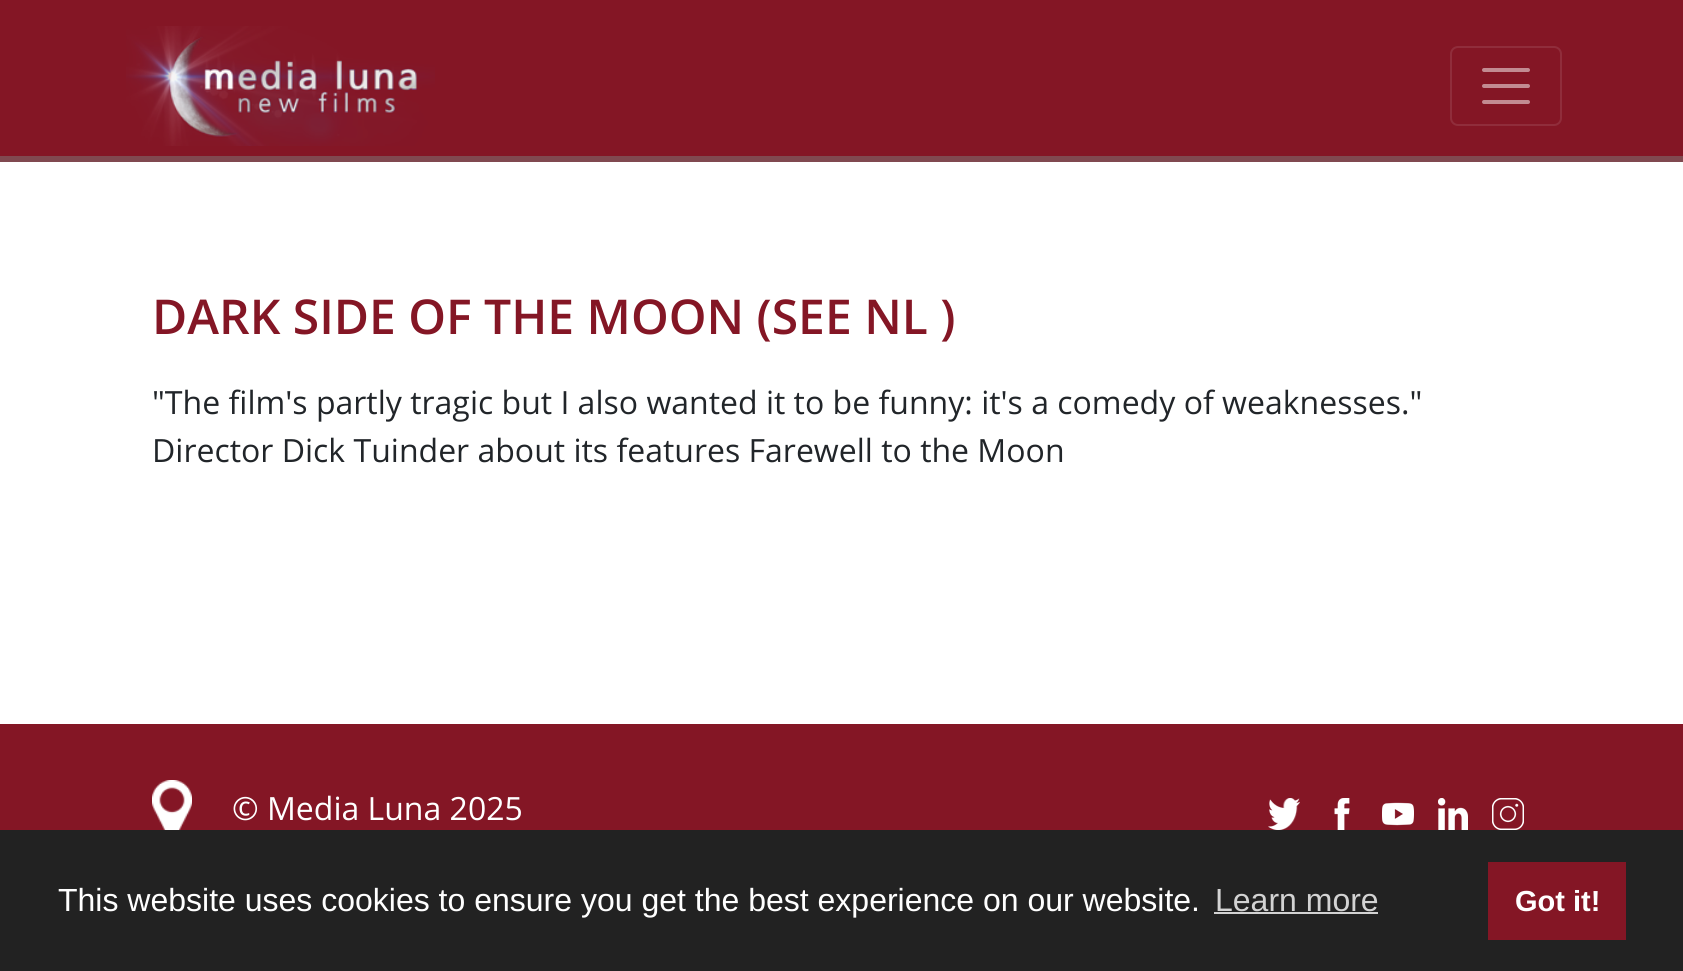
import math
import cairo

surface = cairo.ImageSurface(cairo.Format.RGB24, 1683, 971)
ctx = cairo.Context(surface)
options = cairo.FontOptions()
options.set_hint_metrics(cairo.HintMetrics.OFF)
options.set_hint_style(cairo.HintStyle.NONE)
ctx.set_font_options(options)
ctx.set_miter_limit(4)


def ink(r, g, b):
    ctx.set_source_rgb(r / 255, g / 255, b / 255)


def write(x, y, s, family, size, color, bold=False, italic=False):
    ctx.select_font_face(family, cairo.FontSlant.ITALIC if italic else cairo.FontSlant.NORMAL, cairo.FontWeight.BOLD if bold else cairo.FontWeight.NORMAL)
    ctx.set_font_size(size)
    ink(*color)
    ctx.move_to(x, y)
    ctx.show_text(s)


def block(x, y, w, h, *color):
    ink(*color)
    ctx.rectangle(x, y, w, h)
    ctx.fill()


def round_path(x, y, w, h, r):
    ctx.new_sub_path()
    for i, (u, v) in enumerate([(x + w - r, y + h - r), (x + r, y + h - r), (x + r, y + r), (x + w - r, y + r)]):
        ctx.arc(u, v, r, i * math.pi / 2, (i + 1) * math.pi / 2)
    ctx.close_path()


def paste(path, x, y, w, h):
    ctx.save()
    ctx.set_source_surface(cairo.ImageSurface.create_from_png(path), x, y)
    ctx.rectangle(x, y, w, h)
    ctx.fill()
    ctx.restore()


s1 = dict(family="Open Sans SemiBold", size=48, color=(132, 22, 37))
s2 = dict(family="Open Sans", size=32, color=(33, 37, 41))
s3 = dict(family="Open Sans", size=32, color=(255, 255, 255))
s4 = dict(family="Liberation Sans", size=32, color=(255, 255, 255))
s5 = dict(family="Liberation Sans", size=32, color=(211, 211, 211))
s6 = dict(family="Liberation Sans", size=29, color=(255, 255, 255), bold=True)

ink(255, 255, 255)
ctx.paint()
block(0, 0, 1683, 156, 132, 22, 37)
block(0, 156, 1683, 6, 128, 73, 80)
paste("pic1.png", 126, 26, 309, 120)
round_path(1451, 47, 110, 78, 7)
ink(144, 45, 59)
ctx.stroke()
ctx.new_path()
ctx.move_to(1484, 70)
ctx.line_to(1528, 70)
ctx.move_to(1484, 86)
ctx.line_to(1528, 86)
ctx.move_to(1484, 102)
ctx.line_to(1528, 102)
ink(194, 139, 146)
ctx.set_line_width(4)
ctx.set_line_cap(cairo.LineCap.ROUND)
ctx.stroke()
write(152, 334, "DARK SIDE OF THE MOON (SEE NL )", **s1)
write(152, 414, "\"The film's partly tragic but I also wanted it to be funny: it's a comedy of weaknesses.\"", **s2)
write(152, 462, "Director Dick Tuinder about its features Farewell to the Moon", **s2)
block(0, 724, 1683, 106, 132, 22, 37)
paste("pic2.png", 152, 780, 40, 50)
write(232, 820, "© Media Luna 2025", **s3)
paste("pic3.png", 1268, 798, 32, 32)
paste("pic4.png", 1334, 798, 16, 32)
paste("pic5.png", 1382, 802, 32, 24)
paste("pic6.png", 1438, 798, 30, 32)
paste("pic7.png", 1492, 798, 32, 32)
block(0, 830, 1683, 141, 34, 34, 34)
write(58, 911, "This website uses cookies to ensure you get the best experience on our website.", **s4)
write(1215, 911, "Learn more", **s5)
block(1214, 912, 164, 2, 211, 211, 211)
block(1488, 862, 138, 78, 132, 22, 37)
write(1515, 911, "Got it!", **s6)
surface.write_to_png("screenshot.png")
